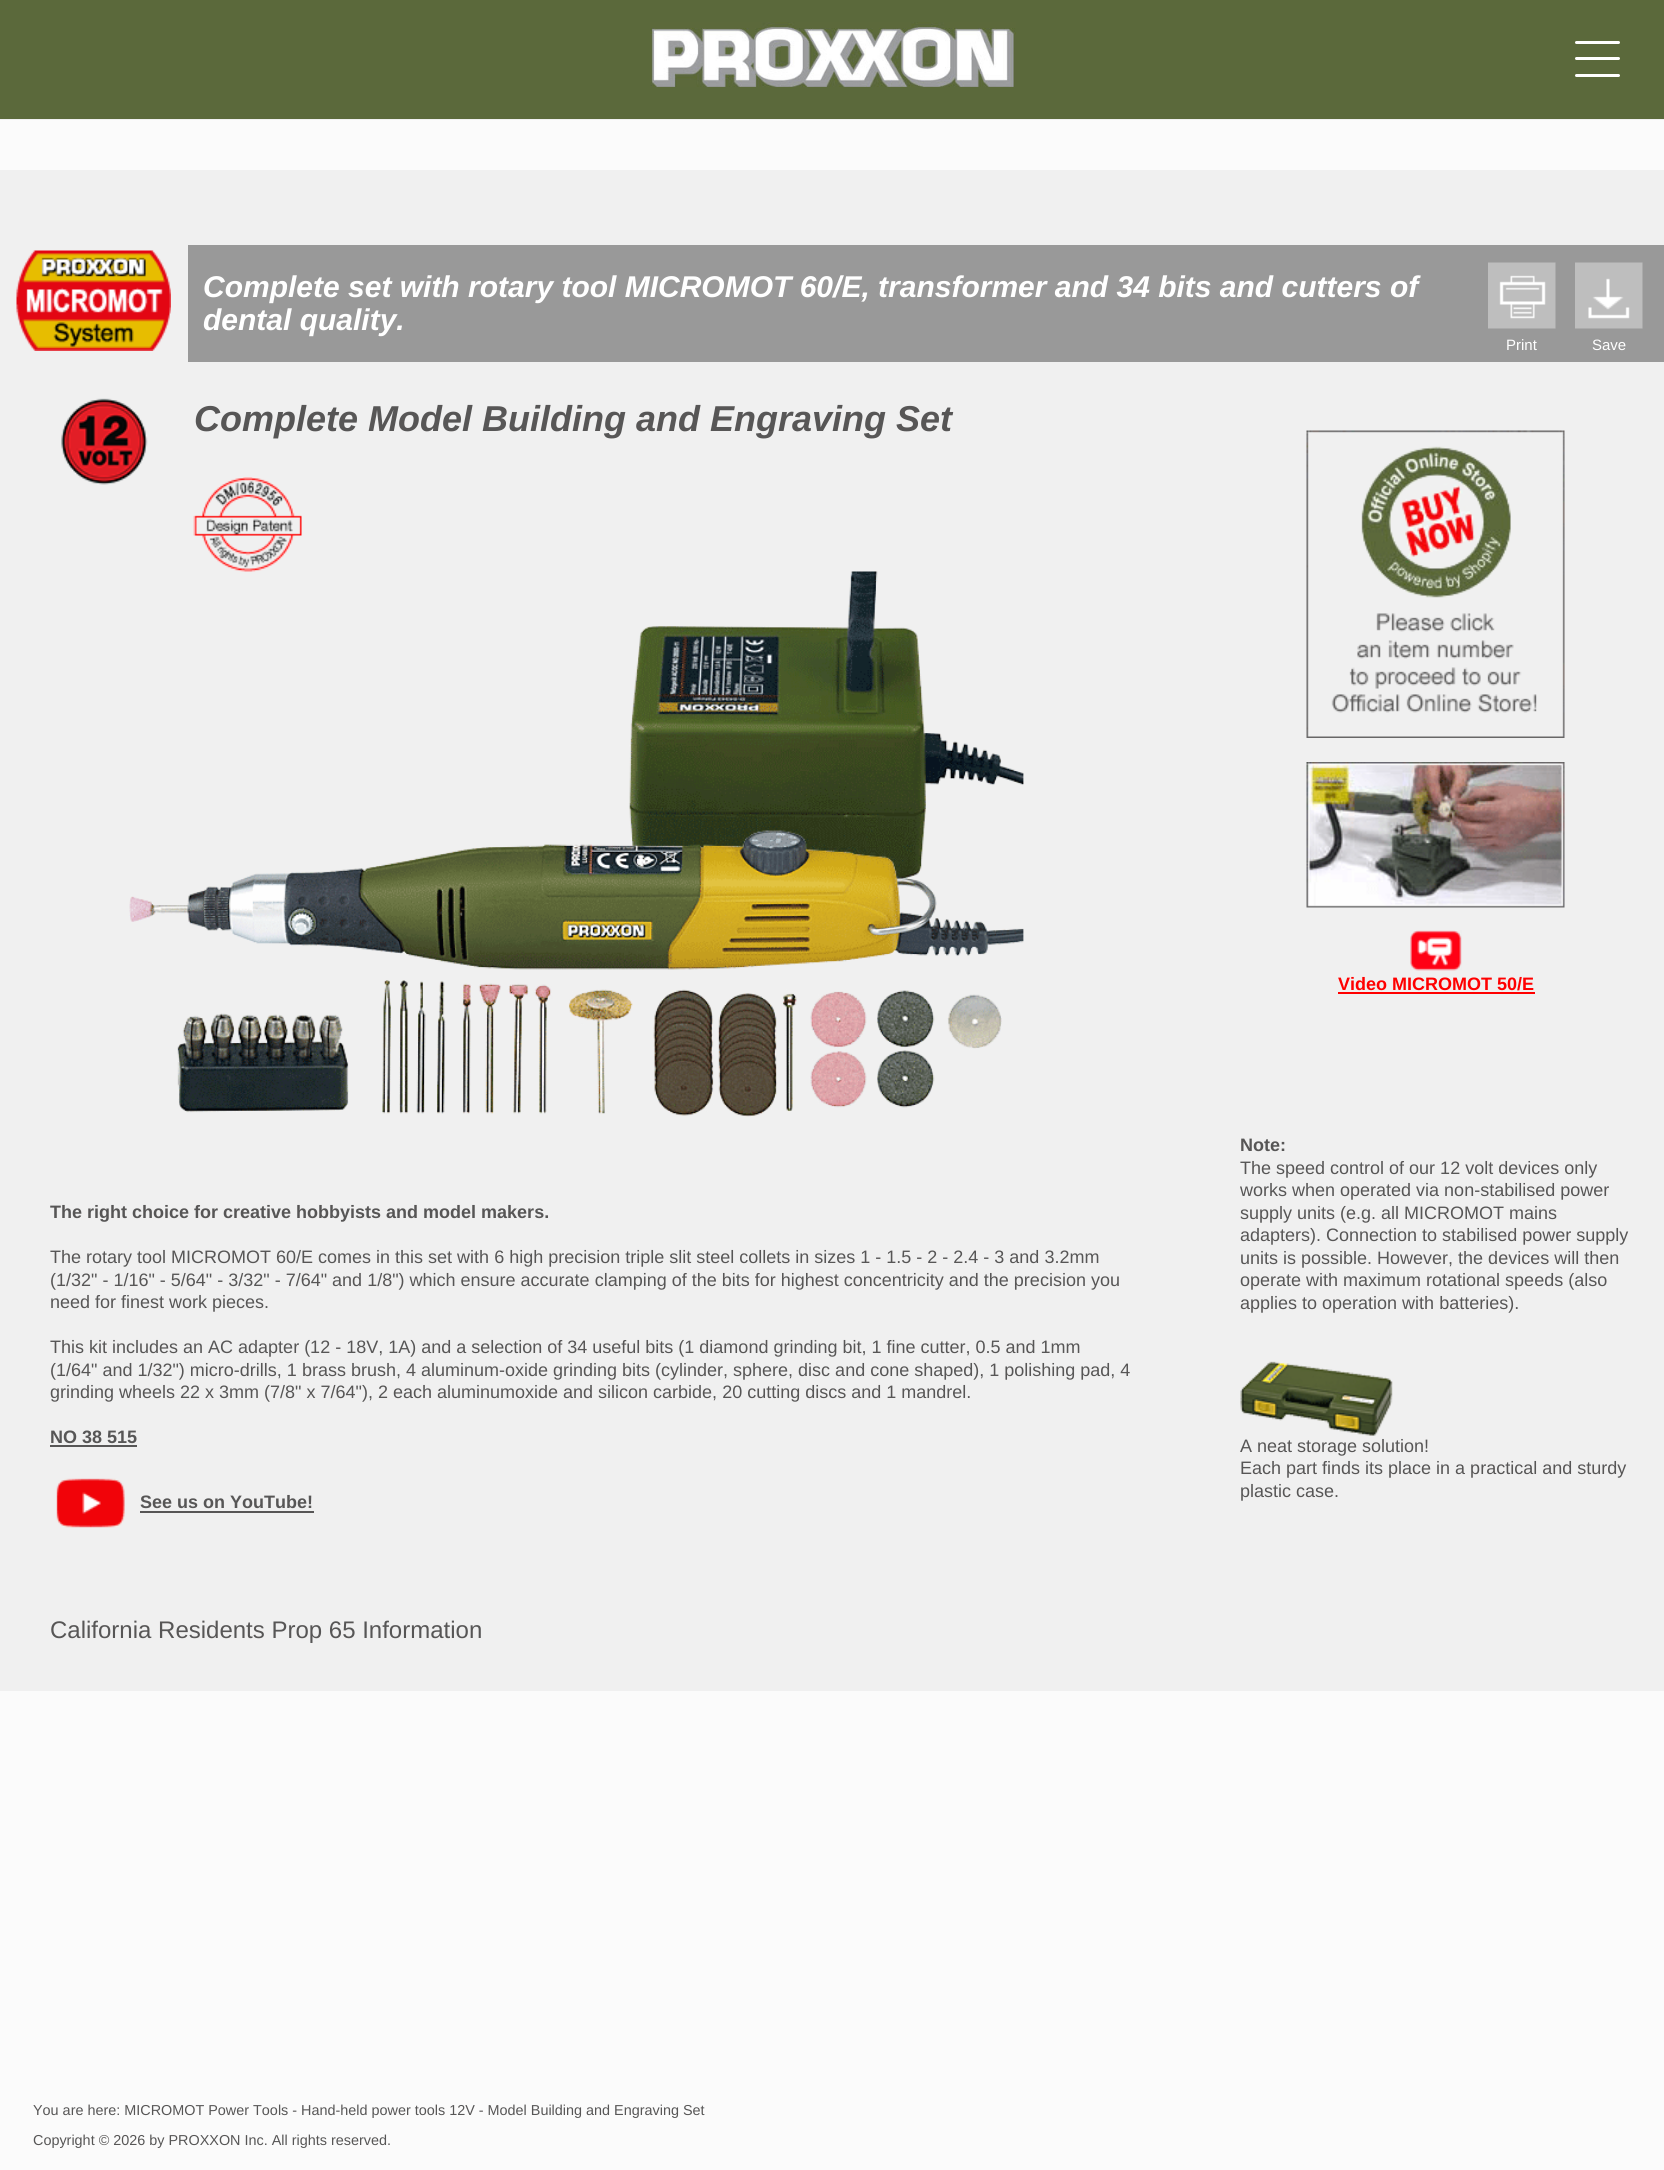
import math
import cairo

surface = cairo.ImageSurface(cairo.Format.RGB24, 1664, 2170)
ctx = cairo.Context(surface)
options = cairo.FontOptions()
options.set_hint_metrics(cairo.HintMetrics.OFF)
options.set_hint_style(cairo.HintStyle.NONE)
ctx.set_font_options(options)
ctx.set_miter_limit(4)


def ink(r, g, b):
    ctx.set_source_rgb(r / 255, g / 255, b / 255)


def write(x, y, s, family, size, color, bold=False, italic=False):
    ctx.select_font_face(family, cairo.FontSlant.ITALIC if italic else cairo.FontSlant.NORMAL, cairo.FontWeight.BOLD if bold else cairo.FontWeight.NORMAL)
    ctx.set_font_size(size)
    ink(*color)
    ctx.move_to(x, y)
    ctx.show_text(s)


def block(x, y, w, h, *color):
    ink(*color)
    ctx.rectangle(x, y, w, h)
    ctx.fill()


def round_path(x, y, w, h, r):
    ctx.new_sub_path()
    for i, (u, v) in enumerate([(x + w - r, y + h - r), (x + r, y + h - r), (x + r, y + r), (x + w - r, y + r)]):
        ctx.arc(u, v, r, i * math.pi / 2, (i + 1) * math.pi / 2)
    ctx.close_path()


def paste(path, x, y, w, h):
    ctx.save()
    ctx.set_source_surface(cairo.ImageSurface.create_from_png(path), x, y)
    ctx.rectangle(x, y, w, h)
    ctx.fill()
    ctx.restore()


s1 = dict(family="Liberation Sans", size=30, color=(255, 255, 255), bold=True, italic=True)
s2 = dict(family="Liberation Sans", size=15, color=(255, 255, 255))
s3 = dict(family="Liberation Sans", size=36, color=(87, 86, 86), bold=True, italic=True)
s4 = dict(family="Liberation Sans", size=18, color=(87, 86, 86), bold=True)
s5 = dict(family="Liberation Sans", size=18, color=(87, 86, 86))
s6 = dict(family="Liberation Sans", size=24, color=(87, 86, 86))
s7 = dict(family="Liberation Sans", size=18, color=(255, 0, 0), bold=True)
s8 = dict(family="Liberation Sans", size=14.4, color=(87, 86, 86))

ink(240, 240, 240)
ctx.paint()
block(0, 0, 1664, 119, 91, 105, 59)
ink(255, 255, 255)
round_path(1575, 41, 45, 3, 1.5)
ctx.fill()
round_path(1575, 57, 45, 3, 1.5)
ctx.fill()
round_path(1575, 74, 45, 3, 1.5)
ctx.fill()
block(0, 120, 1664, 2050, 251, 251, 251)
paste("pic1.png", 650, 22, 366, 65)
block(0, 170, 1664, 1521, 240, 240, 240)
block(188, 245, 1476, 117, 153, 153, 153)
paste("pic2.png", 16, 250, 155, 101)
write(203, 297, "Complete set with rotary tool MICROMOT 60/E, transformer and 34 bits and cutters of", **s1)
write(203, 330, "dental quality.", **s1)
paste("pic3.png", 1488, 262, 68, 67)
write(1506, 350, "Print", **s2)
paste("pic4.png", 1575, 262, 68, 67)
write(1592, 350, "Save", **s2)
paste("pic5.png", 61, 398, 87, 87)
write(194, 431, "Complete Model Building and Engraving Set", **s3)
paste("pic6.png", 193, 477, 109, 95)
paste("pic7.png", 129, 571, 895, 546)
write(50, 1218, "The right choice for creative hobbyists and model makers.", **s4)
write(50, 1263, "The rotary tool MICROMOT 60/E comes in this set with 6 high precision triple slit steel collets in sizes 1 - 1.5 - 2 - 2.4 - 3 and 3.2mm", **s5)
write(50, 1286, "(1/32\" - 1/16\" - 5/64\" - 3/32\" - 7/64\" and 1/8\") which ensure accurate clamping of the bits for highest concentricity and the precision you", **s5)
write(50, 1308, "need for finest work pieces.", **s5)
write(50, 1353, "This kit includes an AC adapter (12 - 18V, 1A) and a selection of 34 useful bits (1 diamond grinding bit, 1 fine cutter, 0.5 and 1mm", **s5)
write(50, 1376, "(1/64\" and 1/32\") micro-drills, 1 brass brush, 4 aluminum-oxide grinding bits (cylinder, sphere, disc and cone shaped), 1 polishing pad, 4", **s5)
write(50, 1398, "grinding wheels 22 x 3mm (7/8\" x 7/64\"), 2 each aluminumoxide and silicon carbide, 20 cutting discs and 1 mandrel.", **s5)
write(50, 1443, "NO 38 515", **s4)
block(50, 1445, 87, 2, 87, 86, 86)
paste("pic8.png", 56, 1478, 69, 50)
write(140, 1508, "See us on YouTube!", **s4)
block(140, 1511, 174, 2, 87, 86, 86)
write(50, 1638, "California Residents Prop 65 Information", **s6)
paste("pic9.png", 1306, 430, 259, 308)
paste("pic10.png", 1306, 762, 259, 146)
paste("pic11.png", 1410, 930, 52, 41)
write(1338, 990, "Video MICROMOT 50/E", **s7)
block(1338, 992, 197, 2, 255, 0, 0)
write(1240, 1151, "Note:", **s4)
write(1240, 1174, "The speed control of our 12 volt devices only", **s5)
write(1240, 1196, "works when operated via non-stabilised power", **s5)
write(1240, 1219, "supply units (e.g. all MICROMOT mains", **s5)
write(1240, 1241, "adapters). Connection to stabilised power supply", **s5)
write(1240, 1264, "units is possible. However, the devices will then", **s5)
write(1240, 1286, "operate with maximum rotational speeds (also", **s5)
write(1240, 1309, "applies to operation with batteries).", **s5)
paste("pic12.png", 1240, 1361, 153, 75)
write(1240, 1452, "A neat storage solution!", **s5)
write(1240, 1474, "Each part finds its place in a practical and sturdy", **s5)
write(1240, 1497, "plastic case.", **s5)
write(33, 2115, "You are here: MICROMOT Power Tools - Hand-held power tools 12V - Model Building and Engraving Set", **s8)
write(33, 2145, "Copyright © 2026 by PROXXON Inc. All rights reserved.", **s8)
surface.write_to_png("screenshot.png")
